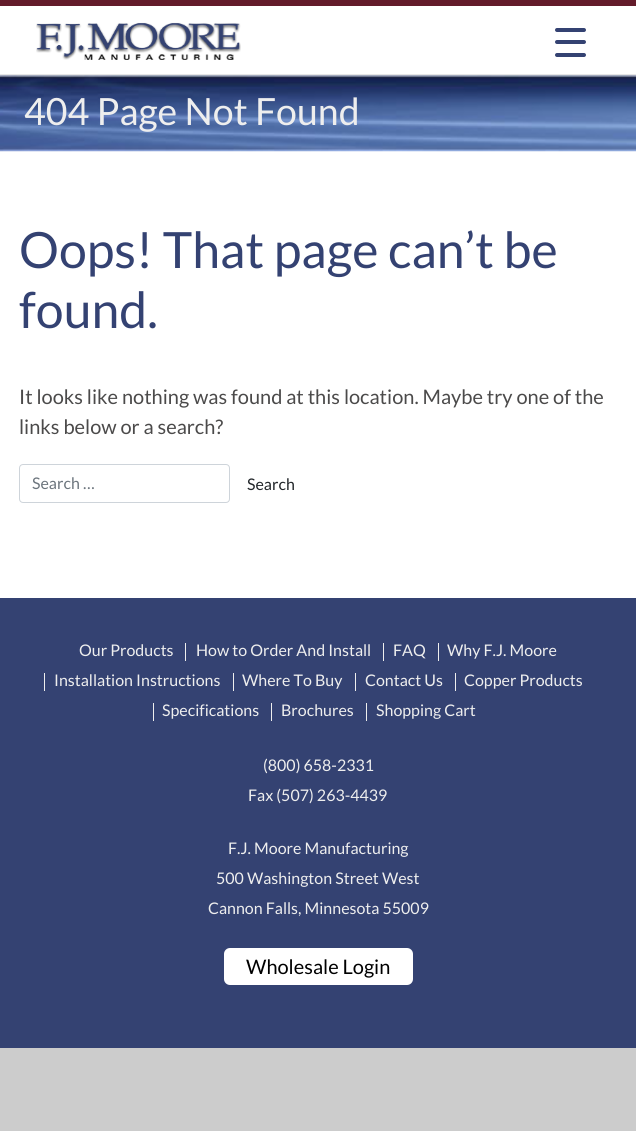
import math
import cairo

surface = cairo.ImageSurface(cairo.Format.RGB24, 636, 1131)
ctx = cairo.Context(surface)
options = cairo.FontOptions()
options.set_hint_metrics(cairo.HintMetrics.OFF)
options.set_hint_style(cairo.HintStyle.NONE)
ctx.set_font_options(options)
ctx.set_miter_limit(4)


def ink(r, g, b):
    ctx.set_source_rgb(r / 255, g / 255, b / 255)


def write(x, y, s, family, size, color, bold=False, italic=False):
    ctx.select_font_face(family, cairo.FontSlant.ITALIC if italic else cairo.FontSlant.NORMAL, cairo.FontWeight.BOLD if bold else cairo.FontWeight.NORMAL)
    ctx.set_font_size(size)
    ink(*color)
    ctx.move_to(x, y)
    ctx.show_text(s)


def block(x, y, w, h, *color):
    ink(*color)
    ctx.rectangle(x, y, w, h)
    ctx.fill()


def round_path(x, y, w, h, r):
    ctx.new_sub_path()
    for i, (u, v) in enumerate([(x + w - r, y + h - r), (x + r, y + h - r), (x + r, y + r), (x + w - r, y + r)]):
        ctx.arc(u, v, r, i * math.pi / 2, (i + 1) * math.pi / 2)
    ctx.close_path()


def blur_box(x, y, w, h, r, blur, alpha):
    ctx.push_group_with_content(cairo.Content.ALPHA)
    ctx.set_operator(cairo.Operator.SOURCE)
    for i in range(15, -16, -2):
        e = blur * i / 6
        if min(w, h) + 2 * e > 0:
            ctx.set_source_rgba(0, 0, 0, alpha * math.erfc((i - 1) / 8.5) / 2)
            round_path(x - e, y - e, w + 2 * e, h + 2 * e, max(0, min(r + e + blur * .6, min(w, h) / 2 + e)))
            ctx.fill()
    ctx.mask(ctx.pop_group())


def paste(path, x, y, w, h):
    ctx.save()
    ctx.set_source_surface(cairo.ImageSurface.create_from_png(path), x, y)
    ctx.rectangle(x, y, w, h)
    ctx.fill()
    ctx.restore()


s1 = dict(family="Lato", size=37.5, color=(238, 238, 238))
s2 = dict(family="Lato", size=50, color=(52, 66, 114))
s3 = dict(family="Lato", size=20, color=(75, 74, 74))
s4 = dict(family="Lato", size=16, color=(108, 117, 125))
s5 = dict(family="Lato", size=16, color=(33, 37, 41))
s6 = dict(family="Lato", size=16, color=(238, 238, 238))
s7 = dict(family="Lato", size=20, color=(0, 0, 0))

ink(204, 204, 204)
ctx.paint()
block(0, 151, 636, 447, 255, 255, 255)
paste("pic2.png", 0, 75, 636, 77)
ink(0, 0, 0)
blur_box(0, 8, 636, 75, 0, 8, 0.05)
block(0, 6, 636, 68, 255, 255, 255)
block(0, 74, 636, 1, 230, 230, 230)
block(0, 0, 636, 6, 99, 27, 42)
paste("pic1.png", 36, 22, 205, 38)
ink(52, 66, 114)
round_path(555, 40, 31, 4, 2)
ctx.fill()
round_path(555, 28, 31, 4, 2)
ctx.fill()
round_path(555, 53, 31, 4, 2)
ctx.fill()
write(24, 125, "404 Page Not Found", **s1)
write(19, 268, "Oops! That page can’t be", **s2)
write(19, 328, "found.", **s2)
write(19, 404, "It looks like nothing was found at this location. Maybe try one of the", **s3)
write(19, 434, "links below or a search?", **s3)
round_path(19.5, 464.5, 210, 38, 3.5)
ink(206, 212, 218)
ctx.set_line_width(1)
ctx.stroke()
write(32, 489, "Search …", **s4)
write(247, 490, "Search", **s5)
block(0, 598, 636, 450, 52, 66, 114)
write(79, 656, "Our Products", **s6)
block(185, 643, 1, 18, 238, 238, 238)
write(196, 656, "How to Order And Install", **s6)
block(383, 643, 1, 18, 238, 238, 238)
write(393, 656, "FAQ", **s6)
block(438, 643, 1, 18, 238, 238, 238)
write(447, 656, "Why F.J. Moore", **s6)
block(44, 673, 1, 18, 238, 238, 238)
write(54, 686, "Installation Instructions", **s6)
block(233, 673, 1, 18, 238, 238, 238)
write(242, 686, "Where To Buy", **s6)
block(355, 673, 1, 18, 238, 238, 238)
write(365, 686, "Contact Us", **s6)
block(455, 673, 1, 18, 238, 238, 238)
write(464, 686, "Copper Products", **s6)
block(153, 703, 1, 18, 238, 238, 238)
write(162, 716, "Specifications", **s6)
block(271, 703, 1, 18, 238, 238, 238)
write(281, 716, "Brochures", **s6)
block(366, 703, 1, 18, 238, 238, 238)
write(376, 716, "Shopping Cart", **s6)
write(263, 771, "(800) 658-2331", **s6)
write(248, 801, "Fax (507) 263-4439", **s6)
write(228, 854, "F.J. Moore Manufacturing", **s6)
write(216, 884, "500 Washington Street West", **s6)
write(208, 914, "Cannon Falls, Minnesota 55009", **s6)
ink(255, 255, 255)
round_path(224, 948, 189, 37, 6)
ctx.fill()
write(246, 974, "Wholesale Login", **s7)
surface.write_to_png("screenshot.png")
